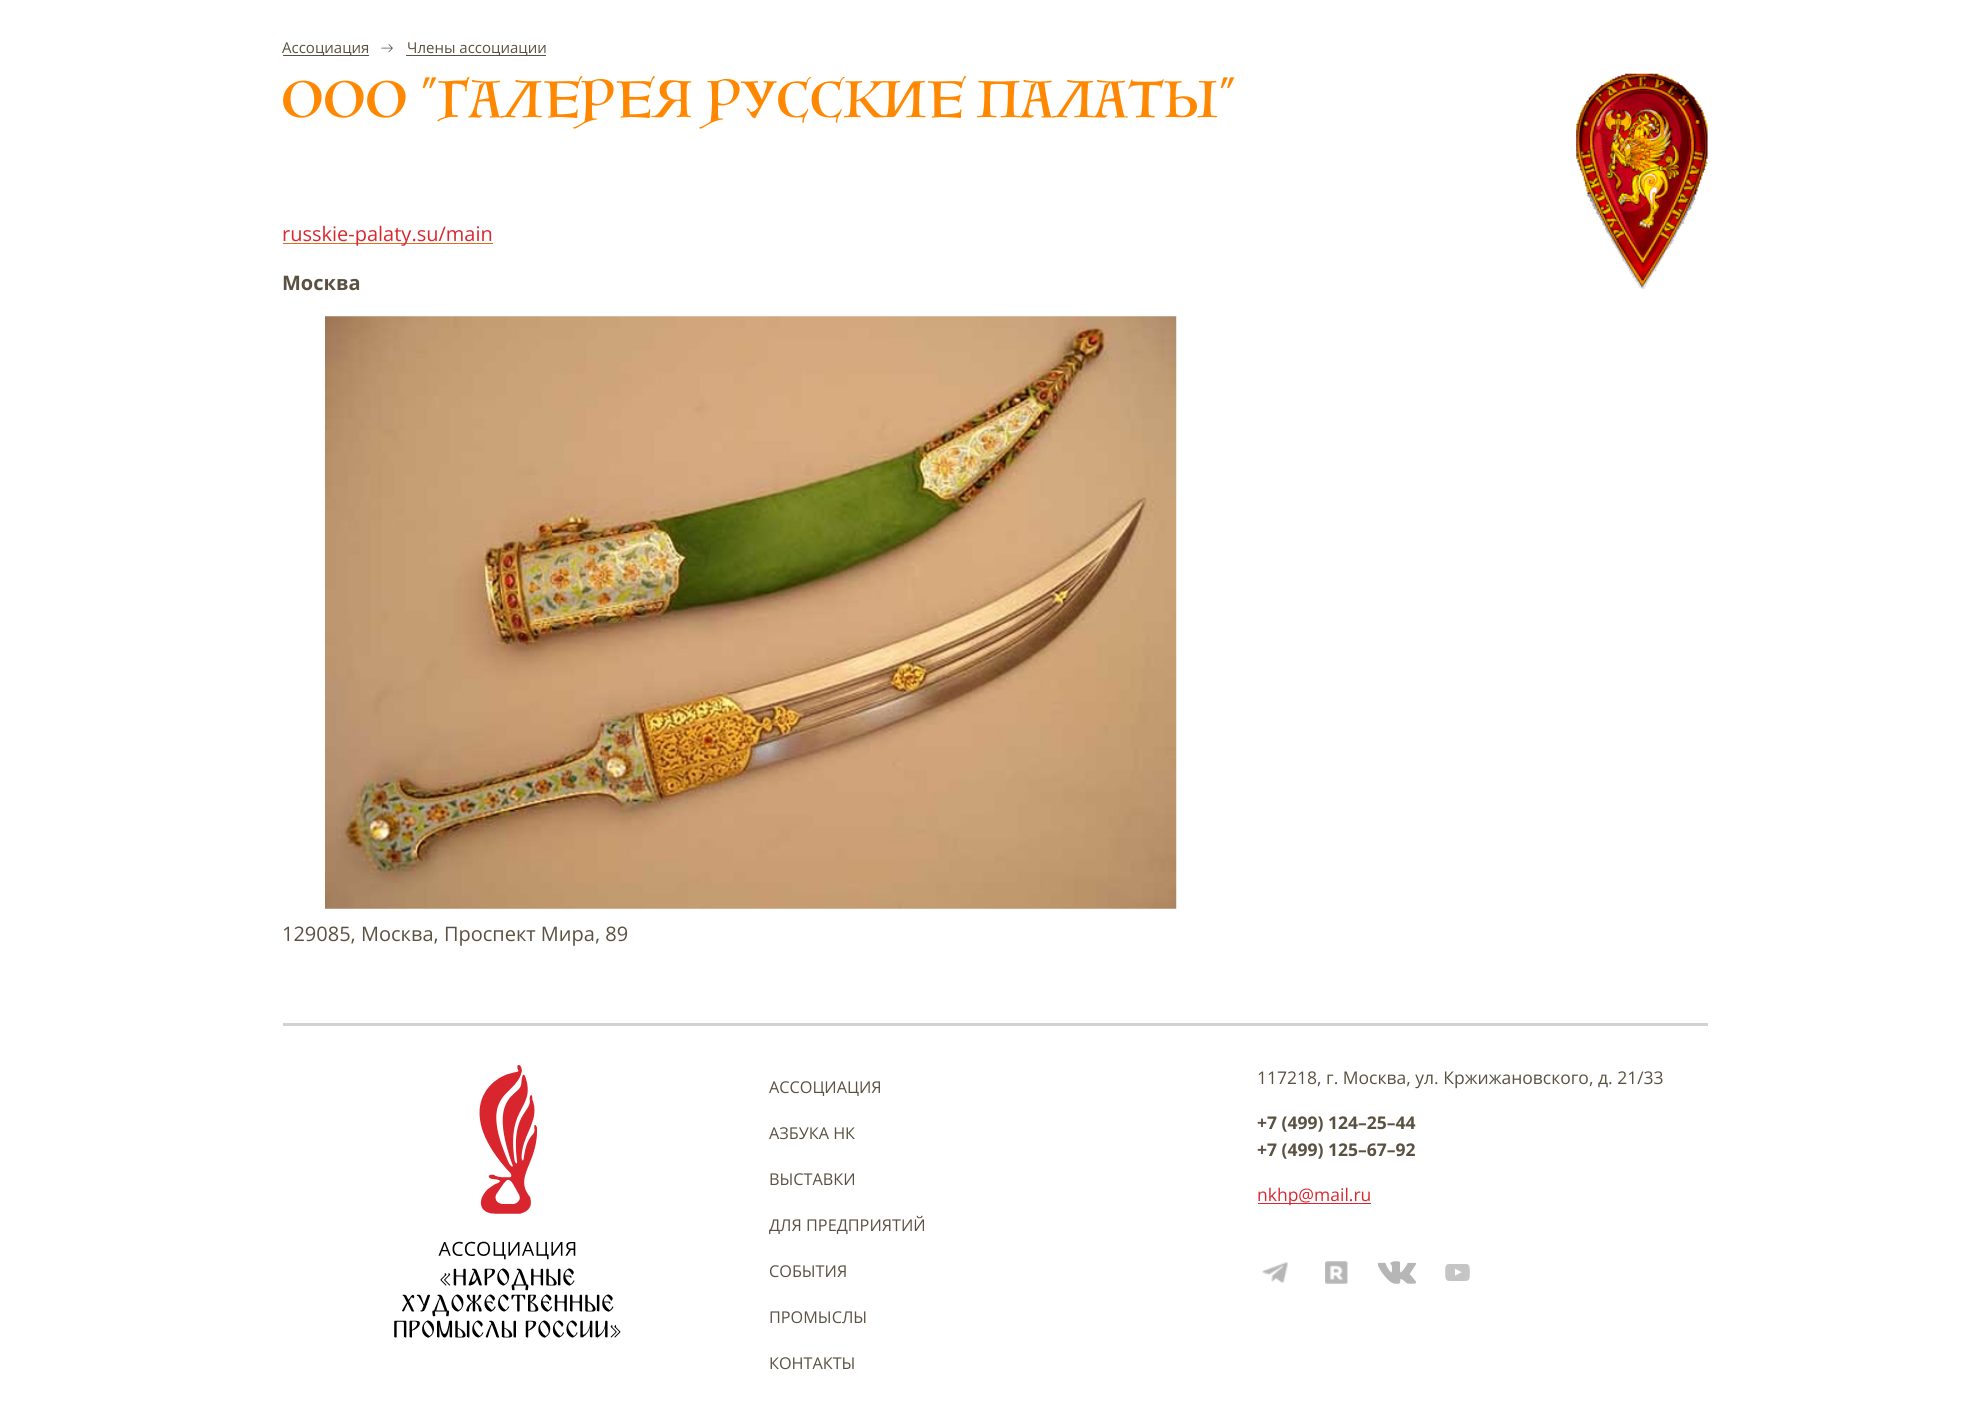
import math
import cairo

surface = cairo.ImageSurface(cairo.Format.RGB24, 1988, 1423)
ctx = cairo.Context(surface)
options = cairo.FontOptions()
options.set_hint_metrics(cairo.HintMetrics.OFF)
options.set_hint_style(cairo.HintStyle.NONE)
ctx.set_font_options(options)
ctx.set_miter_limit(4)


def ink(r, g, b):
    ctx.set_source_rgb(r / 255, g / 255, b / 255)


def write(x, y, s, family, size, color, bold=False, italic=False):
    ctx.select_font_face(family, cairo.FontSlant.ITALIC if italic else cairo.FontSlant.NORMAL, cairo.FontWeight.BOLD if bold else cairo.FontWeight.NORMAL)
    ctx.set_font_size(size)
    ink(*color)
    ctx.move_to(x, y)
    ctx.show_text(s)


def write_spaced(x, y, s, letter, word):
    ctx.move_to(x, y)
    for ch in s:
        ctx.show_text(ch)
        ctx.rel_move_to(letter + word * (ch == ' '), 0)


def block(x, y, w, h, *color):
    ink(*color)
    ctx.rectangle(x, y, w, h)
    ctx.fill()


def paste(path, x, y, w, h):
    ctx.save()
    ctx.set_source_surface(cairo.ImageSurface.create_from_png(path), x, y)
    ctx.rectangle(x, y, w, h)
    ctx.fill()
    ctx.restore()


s1 = dict(family="Open Sans", size=15, color=(90, 81, 66))
s2 = dict(family="Open Sans", size=20, color=(218, 39, 47))
s3 = dict(family="Open Sans", size=20, color=(90, 81, 66), bold=True)
s4 = dict(family="Open Sans", size=20, color=(90, 81, 66))
s5 = dict(family="Open Sans", size=16.25, color=(90, 81, 66))
s6 = dict(family="Open Sans", size=17.5, color=(90, 81, 66))
s7 = dict(family="Open Sans", size=17.5, color=(90, 81, 66), bold=True)
s8 = dict(family="Open Sans", size=17.5, color=(218, 39, 47))

ink(255, 255, 255)
ctx.paint()
block(283, 55, 86, 1, 90, 81, 66)
write(282, 53, "Ассоциация", **s1)
paste("pic1.png", 381, 44, 12, 8)
block(406, 55, 140, 1, 90, 81, 66)
write(407, 53, "Члены ассоциации", **s1)
ctx.select_font_face("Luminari")
ctx.set_font_size(50)
ink(255, 136, 0)
write_spaced(282, 117, "ООО \"ГАЛЕРЕЯ РУССКИЕ ПАЛАТЫ\"", 1.25, 0)
paste("pic2.png", 1576, 73, 132, 216)
block(283, 243, 210, 1, 225, 108, 34)
write(282, 241, "russkie-palaty.su/main", **s2)
write(282, 290, "Москва", **s3)
paste("pic3.png", 325, 316, 852, 593)
write(282, 941, "129085, Москва, Проспект Мира, 89", **s4)
block(283, 1023, 1425, 3, 210, 210, 210)
paste("pic4.png", 394, 1065, 227, 273)
write(769, 1093, "АССОЦИАЦИЯ", **s5)
write(769, 1139, "АЗБУКА НК", **s5)
write(769, 1185, "ВЫСТАВКИ", **s5)
write(769, 1231, "ДЛЯ ПРЕДПРИЯТИЙ", **s5)
write(769, 1277, "СОБЫТИЯ", **s5)
write(769, 1323, "ПРОМЫСЛЫ", **s5)
write(769, 1369, "КОНТАКТЫ", **s5)
write(1257, 1084, "117218, г. Москва, ул. Кржижановского, д. 21/33", **s6)
write(1257, 1129, "+7 (499) 124–25–44", **s7)
write(1257, 1156, "+7 (499) 125–67–92", **s7)
block(1258, 1203, 113, 1, 218, 39, 47)
write(1257, 1201, "nkhp@mail.ru", **s8)
paste("pic5.png", 1262, 1262, 26, 21)
paste("pic6.png", 1325, 1261, 23, 23)
paste("pic7.png", 1378, 1261, 38, 23)
paste("pic8.png", 1445, 1264, 25, 17)
surface.write_to_png("screenshot.png")
